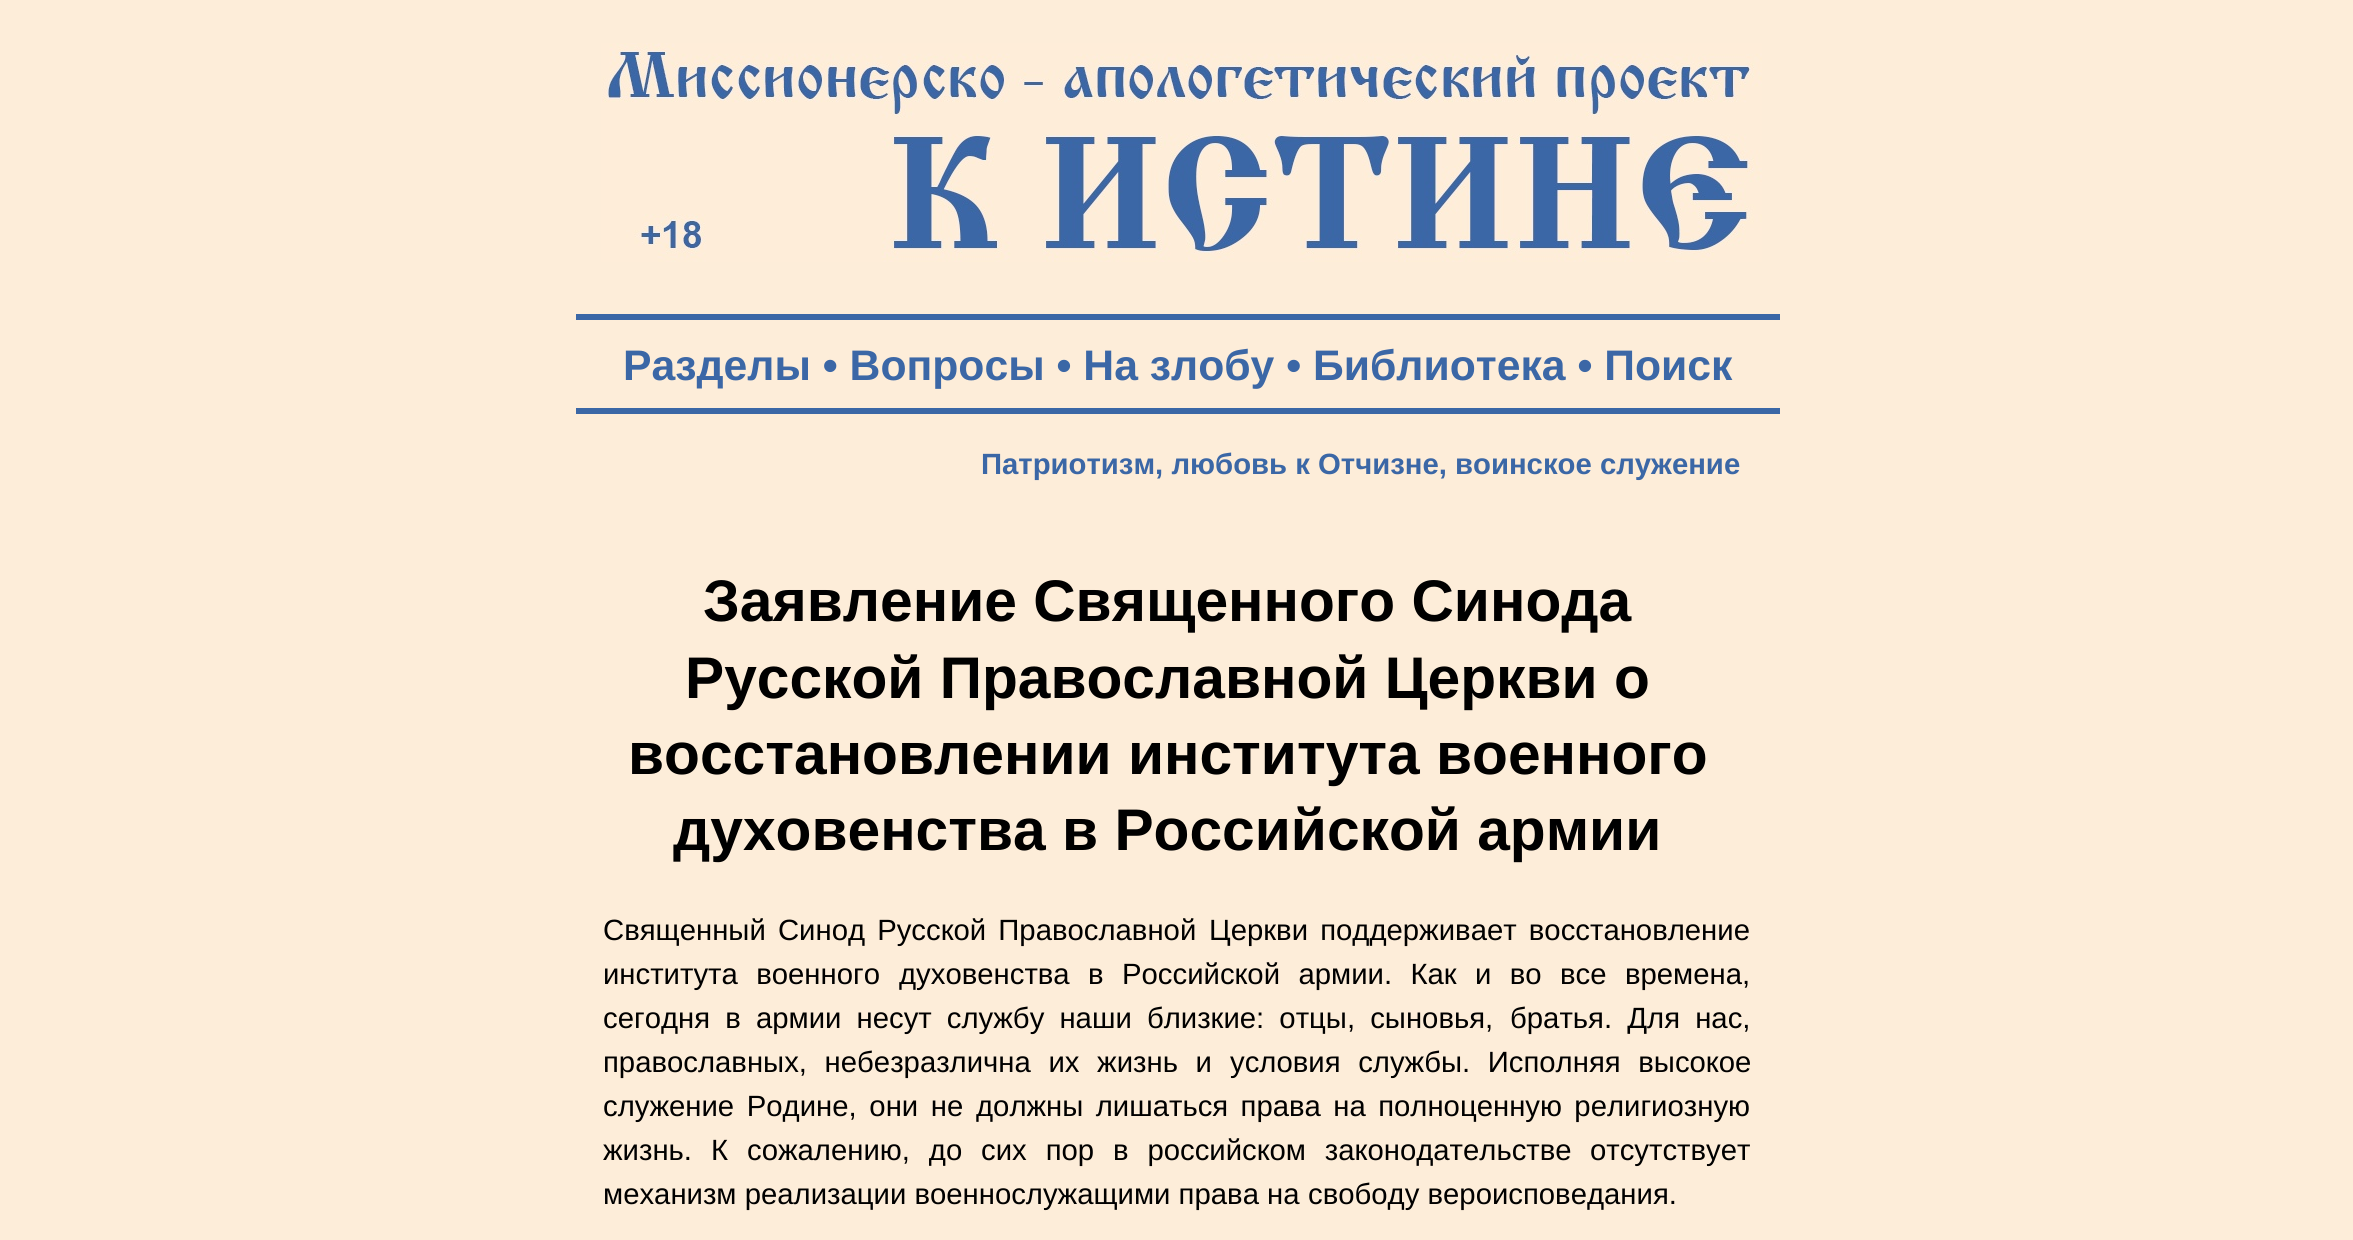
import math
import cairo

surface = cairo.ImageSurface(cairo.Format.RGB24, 2353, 1240)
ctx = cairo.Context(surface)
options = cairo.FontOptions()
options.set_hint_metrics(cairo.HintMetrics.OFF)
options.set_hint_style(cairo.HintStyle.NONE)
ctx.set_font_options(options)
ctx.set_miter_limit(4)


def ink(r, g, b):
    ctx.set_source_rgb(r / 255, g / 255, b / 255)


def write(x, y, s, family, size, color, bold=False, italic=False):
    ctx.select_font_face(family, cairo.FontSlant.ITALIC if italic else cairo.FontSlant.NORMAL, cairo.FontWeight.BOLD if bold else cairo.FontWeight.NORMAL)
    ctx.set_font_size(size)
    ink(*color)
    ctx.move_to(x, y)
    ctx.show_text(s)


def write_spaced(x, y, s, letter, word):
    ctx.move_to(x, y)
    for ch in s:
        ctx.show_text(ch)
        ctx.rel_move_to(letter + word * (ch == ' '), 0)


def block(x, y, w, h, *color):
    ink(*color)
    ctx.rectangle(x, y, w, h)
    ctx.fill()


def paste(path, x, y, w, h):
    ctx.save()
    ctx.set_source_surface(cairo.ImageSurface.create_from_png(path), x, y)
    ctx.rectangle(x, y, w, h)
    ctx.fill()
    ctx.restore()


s1 = dict(family="Liberation Sans", size=42.7, color=(59, 103, 166), bold=True)
s2 = dict(family="Liberation Sans", size=29.3, color=(59, 103, 166), bold=True)
s3 = dict(family="Liberation Sans", size=58.7, color=(0, 0, 0), bold=True)
s4 = dict(family="Liberation Sans", size=29.3, color=(0, 0, 0))

ink(253, 237, 217)
ctx.paint()
paste("pic1.png", 601, 43, 1161, 219)
block(576, 314, 1204, 6, 59, 103, 166)
write(623, 380, "Разделы • Вопросы • На злобу • Библиотека • Поиск", **s1)
block(576, 408, 1204, 6, 59, 103, 166)
write(981, 474, "Патриотизм, любовь к Отчизне, воинское служение", **s2)
write(703, 621, "Заявление Священного Синода", **s3)
write(685, 698, "Русской Православной Церкви о", **s3)
write(628, 774, "восстановлении института военного", **s3)
write(673, 850, "духовенства в Российской армии", **s3)
ctx.select_font_face("Liberation Sans")
ctx.set_font_size(29.3)
write_spaced(603, 940, "Священный Синод Русской Православной", 0, 4)
write_spaced(1209, 940, "Церкви поддерживает восстановление", 0, 4)
write_spaced(603, 984, "института военного", 0, 10.25)
write_spaced(899, 984, "духовенства в Российской армии. Как и во все времена,", 0, 10.25)
write_spaced(603, 1028, "сегодня в армии несут службу наши близкие: отцы, сыновья,", 0, 7)
write_spaced(1510, 1028, "братья. Для нас,", 0, 7)
write_spaced(603, 1072, "православных, небезразлична их жизнь и", 0, 9.5)
write_spaced(1230, 1072, "условия службы. Исполняя высокое", 0, 9.5)
write_spaced(603, 1116, "служение Родине, они не", 0, 4.5)
write_spaced(976, 1116, "должны лишаться права на полноценную религиозную", 0, 4.25)
write_spaced(603, 1160, "жизнь. К", 0, 10.75)
write_spaced(747, 1160, "сожалению, до сих пор в российском законодательстве", 0, 10.75)
write(1590, 1160, "отсутствует", **s4)
write(603, 1204, "механизм реализации военнослужащими права на", **s4)
write(1308, 1204, "свободу вероисповедания.", **s4)
surface.write_to_png("screenshot.png")
